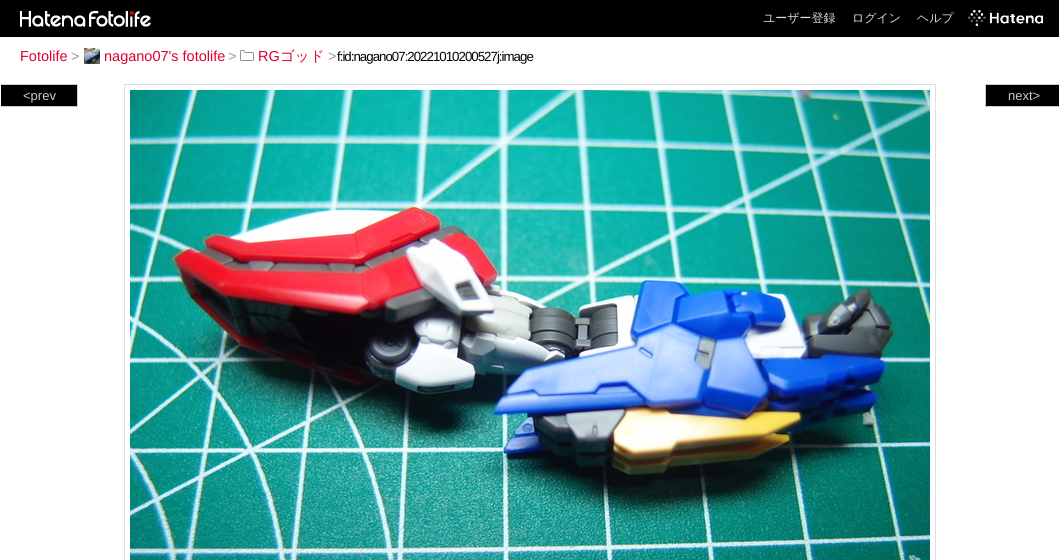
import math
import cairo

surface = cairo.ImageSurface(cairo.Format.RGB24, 1059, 560)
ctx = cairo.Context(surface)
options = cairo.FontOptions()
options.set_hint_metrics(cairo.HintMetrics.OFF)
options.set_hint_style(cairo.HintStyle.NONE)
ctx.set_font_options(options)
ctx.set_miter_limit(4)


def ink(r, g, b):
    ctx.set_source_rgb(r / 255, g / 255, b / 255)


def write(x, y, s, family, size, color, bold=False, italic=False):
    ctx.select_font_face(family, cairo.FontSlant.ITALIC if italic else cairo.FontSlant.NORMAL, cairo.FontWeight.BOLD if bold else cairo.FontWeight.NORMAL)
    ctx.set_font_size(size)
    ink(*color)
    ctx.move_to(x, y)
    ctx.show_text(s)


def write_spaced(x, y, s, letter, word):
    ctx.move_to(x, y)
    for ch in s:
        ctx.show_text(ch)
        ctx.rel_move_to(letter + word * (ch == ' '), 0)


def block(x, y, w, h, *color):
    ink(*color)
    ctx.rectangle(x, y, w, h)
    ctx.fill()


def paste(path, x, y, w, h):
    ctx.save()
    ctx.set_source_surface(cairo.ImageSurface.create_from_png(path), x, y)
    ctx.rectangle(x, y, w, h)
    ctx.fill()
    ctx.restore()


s1 = dict(family="WenQuanYi Zen Hei Medium", size=12, color=(221, 221, 221))
s2 = dict(family="Liberation Sans", size=14.5, color=(222, 0, 47))
s3 = dict(family="Liberation Sans", size=14.5, color=(153, 153, 153))
s4 = dict(family="WenQuanYi Zen Hei Medium", size=14.5, color=(222, 0, 47))
s5 = dict(family="Liberation Sans", size=13, color=(204, 204, 204))

ink(255, 255, 255)
ctx.paint()
block(0, 0, 1059, 37, 0, 0, 0)
paste("pic1.png", 20, 11, 66, 16)
paste("pic2.png", 89, 11, 62, 16)
write(763, 22, "ユーザー登録", **s1)
write(852, 22, "ログイン", **s1)
write(917, 22, "ヘルプ", **s1)
paste("pic3.png", 968, 10, 75, 16)
write(20, 61, "Fotolife", **s2)
write(71, 61, ">", **s3)
paste("pic4.png", 84, 48, 16, 16)
write(104, 61, "nagano07's fotolife", **s2)
write(228, 61, ">", **s3)
paste("pic5.png", 240, 50, 14, 11)
write(258, 61, "RG", **s2)
write(280, 61, "ゴッド", **s4)
write(328, 61, ">", **s3)
ctx.set_font_size(13.3)
ink(0, 0, 0)
write_spaced(337, 61, "f:id:nagano07:20221010200527j:image", -1, 0)
block(1, 85, 76, 21, 0, 0, 0)
block(1, 84, 77, 1, 204, 204, 204)
block(77, 84, 1, 23, 204, 204, 204)
block(1, 106, 77, 1, 204, 204, 204)
write(23, 100, "<prev", **s5)
ctx.rectangle(124.5, 84.5, 811, 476)
ink(222, 222, 222)
ctx.set_line_width(1)
ctx.stroke()
paste("pic6.png", 130, 90, 800, 470)
block(986, 85, 73, 21, 0, 0, 0)
block(985, 84, 74, 1, 204, 204, 204)
block(985, 106, 74, 1, 204, 204, 204)
block(985, 84, 1, 23, 204, 204, 204)
write(1008, 100, "next>", **s5)
surface.write_to_png("screenshot.png")
